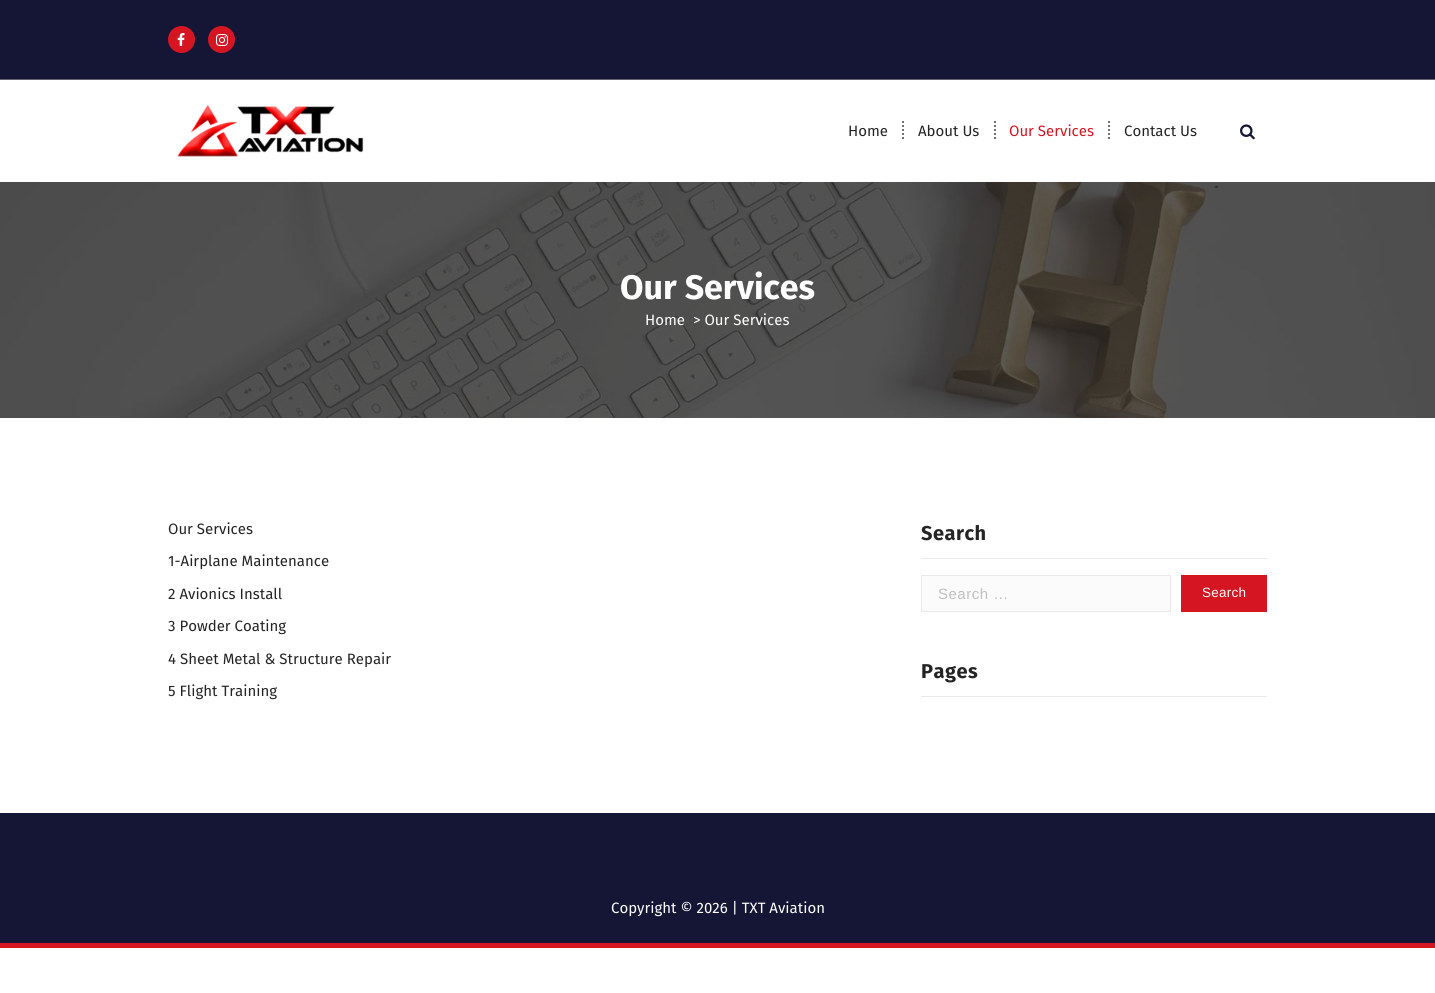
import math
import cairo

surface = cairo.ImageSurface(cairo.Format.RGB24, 1435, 993)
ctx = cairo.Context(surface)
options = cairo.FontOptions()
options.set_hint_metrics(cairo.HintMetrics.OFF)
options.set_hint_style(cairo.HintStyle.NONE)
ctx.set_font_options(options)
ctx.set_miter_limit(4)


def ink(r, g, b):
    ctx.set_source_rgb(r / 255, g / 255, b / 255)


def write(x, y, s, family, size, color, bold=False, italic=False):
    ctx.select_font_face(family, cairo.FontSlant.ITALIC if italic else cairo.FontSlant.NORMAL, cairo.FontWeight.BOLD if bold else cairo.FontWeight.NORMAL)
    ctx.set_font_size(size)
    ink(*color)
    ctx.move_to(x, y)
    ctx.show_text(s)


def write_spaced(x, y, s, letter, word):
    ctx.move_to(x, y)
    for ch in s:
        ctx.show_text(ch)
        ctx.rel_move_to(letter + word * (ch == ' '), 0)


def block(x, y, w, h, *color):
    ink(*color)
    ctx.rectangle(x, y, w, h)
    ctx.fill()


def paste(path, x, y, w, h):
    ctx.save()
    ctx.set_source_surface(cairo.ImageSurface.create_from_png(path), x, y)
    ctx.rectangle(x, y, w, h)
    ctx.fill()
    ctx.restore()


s1 = dict(family="Fira Sans", size=15, color=(36, 36, 36))
s2 = dict(family="Fira Sans", size=15, color=(214, 21, 35))
s3 = dict(family="Fira Sans", size=34, color=(255, 255, 255), bold=True)
s4 = dict(family="Fira Sans", size=15, color=(255, 255, 255))

ink(255, 255, 255)
ctx.paint()
block(0, 0, 1435, 79, 21, 22, 53)
block(0, 79, 1435, 1, 97, 97, 114)
ink(214, 21, 35)
ctx.arc(181.5, 39.5, 13.5, 0, 2 * math.pi)
ctx.fill()
paste("pic1.png", 177, 33, 8, 13)
ctx.arc(221.5, 39.5, 13.5, 0, 2 * math.pi)
ctx.fill()
paste("pic2.png", 216, 34, 12, 12)
paste("pic3.png", 177, 104, 187, 53)
write(848, 136, "Home", **s1)
ctx.new_path()
ctx.move_to(903, 121)
ctx.line_to(903, 141)
ink(113, 113, 113)
ctx.set_dash([2, 2])
ctx.stroke()
write(918, 136, "About Us", **s1)
ctx.new_path()
ctx.move_to(995, 121)
ctx.line_to(995, 141)
ink(113, 113, 113)
ctx.stroke()
write(1009, 136, "Our Services", **s2)
ctx.new_path()
ctx.move_to(1109, 121)
ctx.line_to(1109, 141)
ink(113, 113, 113)
ctx.stroke()
write(1124, 136, "Contact Us", **s1)
paste("pic4.png", 1240, 124, 15, 16)
paste("pic5.png", 0, 182, 1435, 236)
write(620, 299, "Our Services", **s3)
write(645, 325, "Home", **s4)
write(693, 325, "> Our Services", **s4)
write(168, 534, "Our Services", **s1)
write(168, 566, "1-Airplane Maintenance", **s1)
write(168, 599, "2 Avionics Install", **s1)
write(168, 631, "3 Powder Coating", **s1)
write(168, 664, "4 Sheet Metal & Structure Repair", **s1)
write(168, 696, "5 Flight Training", **s1)
block(921, 558, 346, 1, 233, 233, 234)
ctx.select_font_face("Fira Sans", cairo.FontSlant.NORMAL, cairo.FontWeight.BOLD)
ctx.set_font_size(20)
ink(36, 36, 36)
write_spaced(921, 540, "Search", 0.5, 0)
ink(251, 251, 251)
ctx.rectangle(921.5, 575.5, 249, 36)
ctx.fill_preserve()
ink(233, 233, 234)
ctx.set_line_width(1)
ctx.set_dash([])
ctx.stroke()
ctx.select_font_face("Liberation Sans")
ctx.set_font_size(15)
ink(192, 192, 192)
write_spaced(938, 599, "Search …", 0.5, 0)
block(1181, 575, 86, 37, 214, 21, 35)
ctx.set_font_size(13.5)
ink(255, 255, 255)
write_spaced(1202, 597, "Search", 0.25, 0)
block(921, 696, 346, 1, 233, 233, 234)
ctx.select_font_face("Fira Sans", cairo.FontSlant.NORMAL, cairo.FontWeight.BOLD)
ctx.set_font_size(20)
ink(36, 36, 36)
write_spaced(921, 678, "Pages", 0.5, 0)
block(0, 813, 1435, 130, 21, 21, 53)
block(0, 943, 1435, 5, 214, 21, 35)
write(611, 913, "Copyright © 2026 | TXT Aviation", **s4)
surface.write_to_png("screenshot.png")
